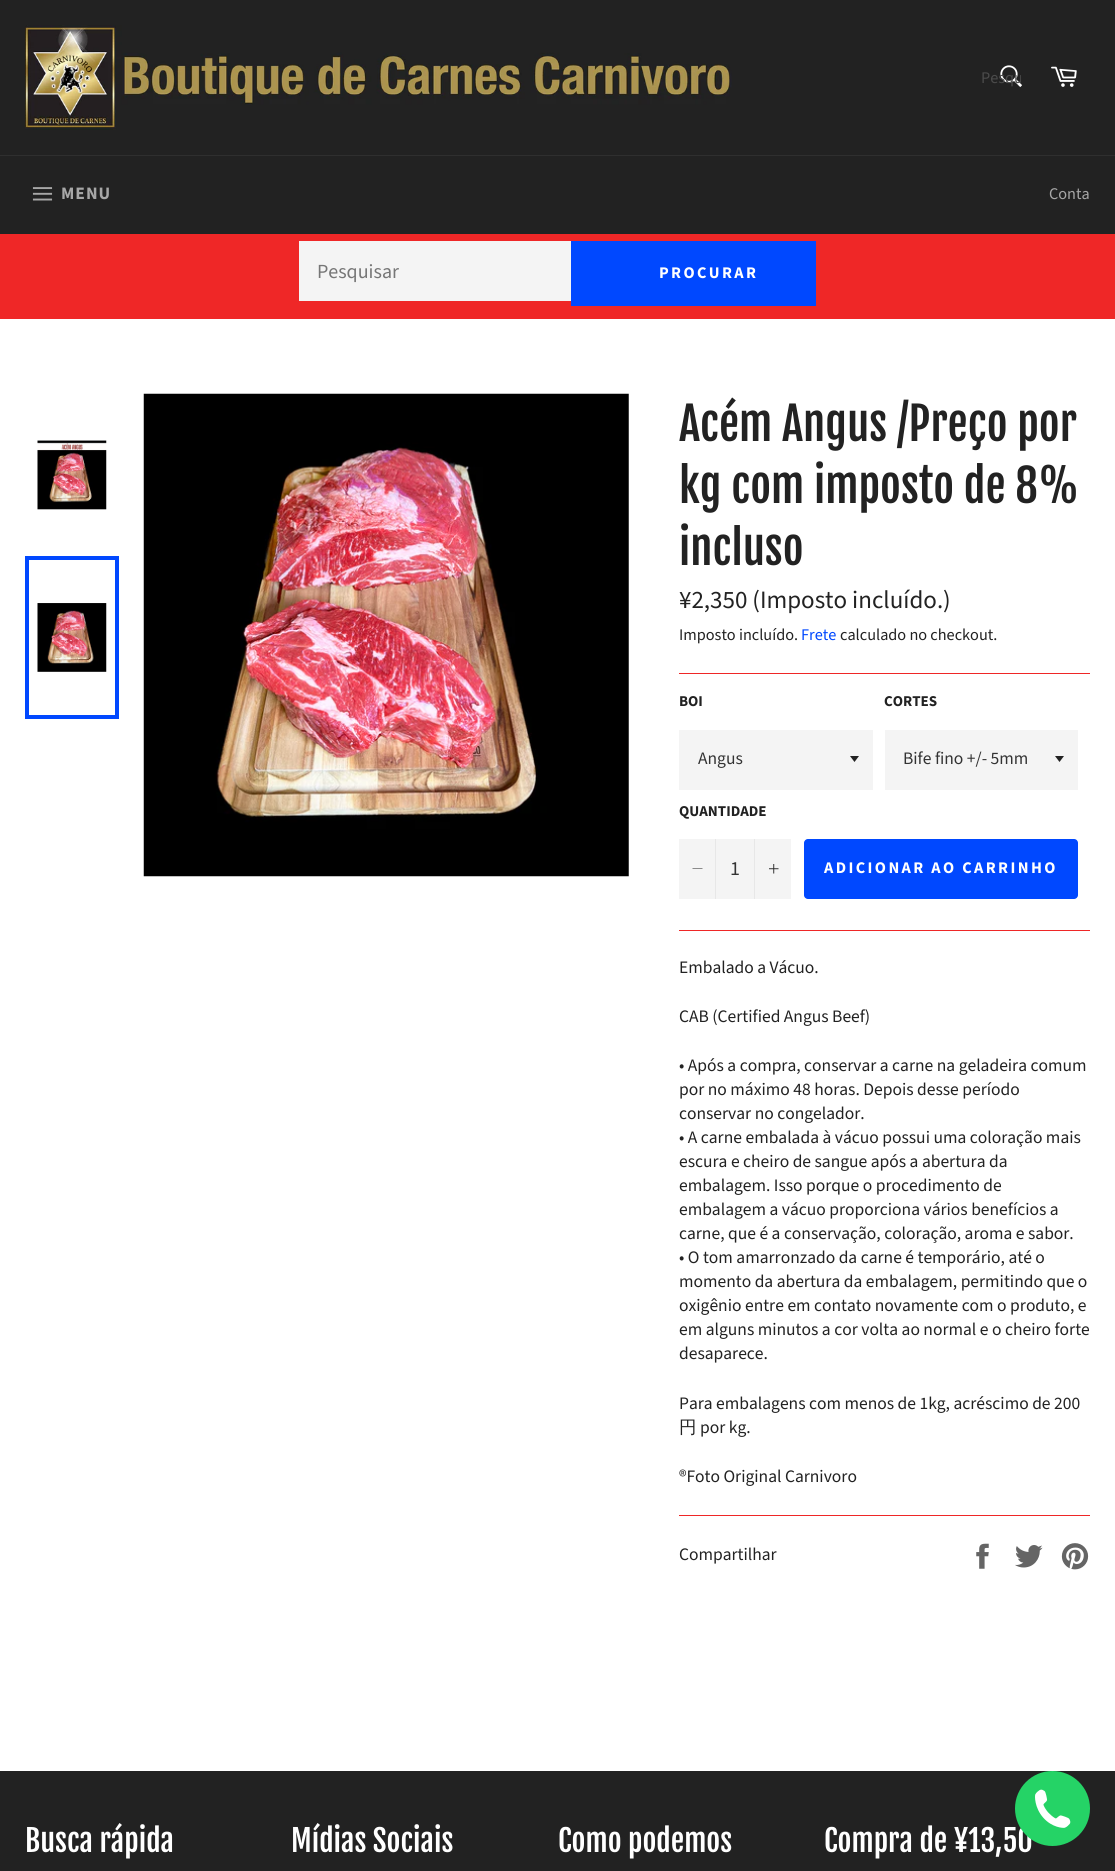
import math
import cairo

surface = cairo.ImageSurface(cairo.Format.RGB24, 1115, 1871)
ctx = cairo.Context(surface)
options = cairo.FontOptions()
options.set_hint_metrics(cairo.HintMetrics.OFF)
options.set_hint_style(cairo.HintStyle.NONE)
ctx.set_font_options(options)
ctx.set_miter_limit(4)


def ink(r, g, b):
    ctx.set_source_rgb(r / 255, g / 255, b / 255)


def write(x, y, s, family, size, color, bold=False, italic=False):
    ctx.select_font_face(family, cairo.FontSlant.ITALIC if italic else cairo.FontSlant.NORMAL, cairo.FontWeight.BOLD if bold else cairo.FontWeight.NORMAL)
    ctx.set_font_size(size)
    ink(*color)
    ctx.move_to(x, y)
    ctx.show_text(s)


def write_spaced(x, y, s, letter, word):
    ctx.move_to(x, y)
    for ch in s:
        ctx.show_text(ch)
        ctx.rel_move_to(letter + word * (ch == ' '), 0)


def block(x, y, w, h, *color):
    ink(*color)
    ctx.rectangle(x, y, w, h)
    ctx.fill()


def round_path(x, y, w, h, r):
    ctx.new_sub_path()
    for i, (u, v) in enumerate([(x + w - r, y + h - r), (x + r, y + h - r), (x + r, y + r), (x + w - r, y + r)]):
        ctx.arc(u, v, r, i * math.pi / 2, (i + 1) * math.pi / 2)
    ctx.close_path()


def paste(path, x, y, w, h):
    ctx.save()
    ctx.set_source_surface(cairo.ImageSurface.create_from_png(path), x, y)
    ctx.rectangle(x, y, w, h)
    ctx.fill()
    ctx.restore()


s1 = dict(family="Source Sans Pro", size=16.25, color=(75, 75, 75))
s2 = dict(family="Source Sans Pro", size=16.25, color=(167, 167, 167))
s3 = dict(family="Source Sans Pro", size=20, color=(118, 118, 118))
s4 = dict(family="Fjalla One", size=45, color=(34, 34, 34))
s5 = dict(family="Source Sans Pro", size=25, color=(34, 34, 34))
s6 = dict(family="Source Sans Pro", size=16.25, color=(34, 34, 34))
s7 = dict(family="Source Sans Pro", size=16.25, color=(0, 72, 255))
s8 = dict(family="Source Sans Pro", size=15, color=(34, 34, 34), bold=True)
s9 = dict(family="Source Sans Pro", size=17.5, color=(51, 51, 51))
s10 = dict(family="Source Sans Pro", size=20, color=(51, 51, 51))
s11 = dict(family="Source Sans Pro", size=17.5, color=(34, 34, 34))
s12 = dict(family="WenQuanYi Zen Hei Medium", size=17.5, color=(34, 34, 34))
s13 = dict(family="Fjalla One", size=30, color=(255, 255, 255))

ink(239, 39, 39)
ctx.paint()
block(0, 0, 1115, 155, 34, 34, 34)
paste("pic1.png", 25, 25, 707, 105)
paste("pic2.png", 1000, 65, 22, 22)
ctx.save()
ctx.rectangle(981, 66, 40, 23)
ctx.clip()
write(981, 83, "Pesqu", **s1)
ctx.restore()
paste("pic3.png", 1051, 66, 26, 21)
block(0, 156, 1115, 78, 34, 34, 34)
block(0, 155, 1115, 1, 47, 47, 47)
paste("pic4.png", 32, 187, 21, 14)
ctx.select_font_face("Source Sans Pro", cairo.FontSlant.NORMAL, cairo.FontWeight.BOLD)
ctx.set_font_size(17.5)
ink(167, 167, 167)
write_spaced(61, 199, "MENU", 1, 0)
write(1049, 199, "Conta", **s2)
block(299, 241, 272, 60, 244, 244, 244)
write(317, 278, "Pesquisar", **s3)
block(571, 241, 245, 65, 0, 72, 255)
ctx.select_font_face("Source Sans Pro", cairo.FontSlant.NORMAL, cairo.FontWeight.BOLD)
ctx.set_font_size(16.25)
ink(255, 255, 255)
write_spaced(659, 278, "PROCURAR", 2.4, 0)
block(0, 319, 1115, 1452, 255, 255, 255)
paste("pic5.png", 37, 440, 70, 70)
paste("pic6.png", 37, 603, 70, 69)
ctx.rectangle(27, 558, 90, 159)
ink(0, 72, 255)
ctx.set_line_width(4)
ctx.stroke()
paste("pic7.png", 143, 393, 486, 484)
write(679, 441, "Acém Angus /Preço por", **s4)
write(679, 503, "kg com imposto de 8%", **s4)
write(679, 565, "incluso", **s4)
write(679, 608, "¥2,350 (Imposto incluído.)", **s5)
write(679, 640, "Imposto incluído.", **s6)
write(801, 640, "Frete", **s7)
write(840, 640, "calculado no checkout.", **s6)
block(679, 673, 411, 1, 239, 39, 39)
write(679, 706, "BOI", **s8)
block(679, 730, 194, 60, 244, 244, 244)
ink(34, 34, 34)
ctx.new_path()
ctx.move_to(850, 756)
ctx.line_to(854.5, 762)
ctx.line_to(859, 756)
ctx.close_path()
ctx.fill()
write(698, 764, "Angus", **s9)
write(884, 706, "CORTES", **s8)
block(885, 730, 193, 60, 244, 244, 244)
ink(34, 34, 34)
ctx.new_path()
ctx.move_to(1055, 756)
ctx.line_to(1059.5, 762)
ctx.line_to(1064, 756)
ctx.close_path()
ctx.fill()
write(903, 764, "Bife fino +/- 5mm", **s9)
write(679, 816, "QUANTIDADE", **s8)
block(679, 839, 112, 60, 244, 244, 244)
block(715, 839, 1, 60, 231, 231, 231)
ink(34, 34, 34)
ctx.set_fill_rule(cairo.FillRule.EVEN_ODD)
ctx.new_path()
ctx.move_to(702.5, 868.5)
ctx.line_to(702.5, 869)
ctx.line_to(692.5, 869)
ctx.line_to(692.5, 868.5)
ctx.close_path()
ctx.fill()
write(730, 875, "1", **s10)
block(754, 839, 1, 60, 231, 231, 231)
paste("pic8.png", 769, 864, 10, 10)
ink(0, 72, 255)
round_path(804, 839, 274, 60, 4)
ctx.fill()
ctx.select_font_face("Source Sans Pro", cairo.FontSlant.NORMAL, cairo.FontWeight.BOLD)
ctx.set_font_size(16.25)
ink(255, 255, 255)
write_spaced(824, 873, "ADICIONAR AO CARRINHO", 2.4, 0)
block(679, 930, 411, 1, 239, 39, 39)
write(679, 973, "Embalado a Vácuo.", **s11)
write(679, 1022, "CAB (Certified Angus Beef)", **s11)
write(679, 1071, "• Após a compra, conservar a carne na geladeira comum", **s11)
write(679, 1095, "por no máximo 48 horas. Depois desse período", **s11)
write(679, 1119, "conservar no congelador.", **s11)
write(679, 1143, "• A carne embalada à vácuo possui uma coloração mais", **s11)
write(679, 1167, "escura e cheiro de sangue após a abertura da", **s11)
write(679, 1191, "embalagem. Isso porque o procedimento de", **s11)
write(679, 1215, "embalagem a vácuo proporciona vários benefícios a", **s11)
write(679, 1239, "carne, que é a conservação, coloração, aroma e sabor.", **s11)
write(679, 1263, "• O tom amarronzado da carne é temporário, até o", **s11)
write(679, 1287, "momento da abertura da embalagem, permitindo que o", **s11)
write(679, 1311, "oxigênio entre em contato novamente com o produto, e", **s11)
write(679, 1335, "em alguns minutos a cor volta ao normal e o cheiro forte", **s11)
write(679, 1359, "desaparece.", **s11)
write(679, 1409, "Para embalagens com menos de 1kg, acréscimo de 200", **s11)
write(679, 1433, "円", **s12)
write(700, 1433, "por kg.", **s11)
write(679, 1482, "®Foto Original Carnivoro", **s11)
block(679, 1515, 411, 1, 239, 39, 39)
write(679, 1560, "Compartilhar", **s11)
paste("pic9.png", 976, 1543, 13, 26)
paste("pic10.png", 1015, 1545, 28, 23)
paste("pic11.png", 1061, 1543, 28, 27)
block(0, 1771, 1115, 100, 34, 34, 34)
write(25, 1852, "Busca rápida", **s13)
write(291, 1852, "Mídias Sociais", **s13)
write(558, 1852, "Como podemos", **s13)
write(824, 1852, "Compra de ¥13,50", **s13)
ink(37, 211, 102)
ctx.new_path()
ctx.arc(1052.5, 1808.5, 37.5, 0, 2 * math.pi)
ctx.fill()
paste("pic12.png", 1035, 1789, 36, 39)
surface.write_to_png("screenshot.png")
